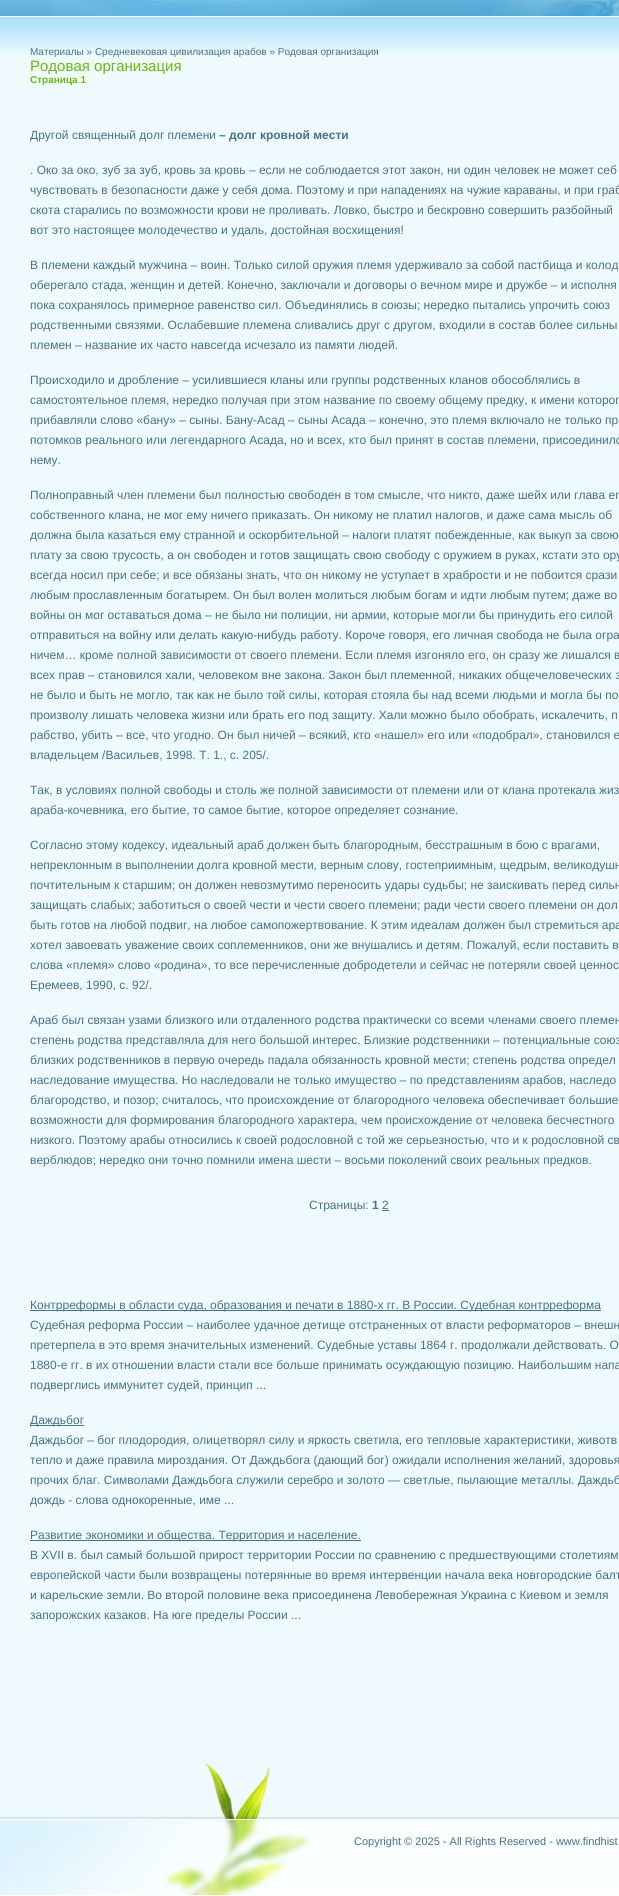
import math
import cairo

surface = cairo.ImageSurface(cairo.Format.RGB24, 619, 1896)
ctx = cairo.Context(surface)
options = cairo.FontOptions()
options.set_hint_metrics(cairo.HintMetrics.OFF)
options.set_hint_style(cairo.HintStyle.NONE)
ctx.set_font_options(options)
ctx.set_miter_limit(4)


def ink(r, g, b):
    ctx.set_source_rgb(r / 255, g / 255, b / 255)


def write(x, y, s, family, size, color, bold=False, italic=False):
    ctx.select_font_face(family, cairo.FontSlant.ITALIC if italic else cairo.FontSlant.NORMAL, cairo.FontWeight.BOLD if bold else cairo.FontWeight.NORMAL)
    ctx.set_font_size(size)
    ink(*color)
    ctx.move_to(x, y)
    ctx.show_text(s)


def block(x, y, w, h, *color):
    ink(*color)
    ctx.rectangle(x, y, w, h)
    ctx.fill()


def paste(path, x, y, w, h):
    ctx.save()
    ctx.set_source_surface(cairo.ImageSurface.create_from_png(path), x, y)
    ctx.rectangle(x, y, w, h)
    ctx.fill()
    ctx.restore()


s1 = dict(family="Liberation Sans", size=10, color=(71, 115, 135))
s2 = dict(family="Liberation Sans", size=15, color=(108, 186, 7))
s3 = dict(family="Liberation Sans", size=10, color=(108, 186, 7), bold=True)
s4 = dict(family="Liberation Sans", size=12, color=(71, 115, 135))
s5 = dict(family="Liberation Sans", size=12, color=(71, 115, 135), bold=True)
s6 = dict(family="Liberation Sans", size=11, color=(71, 115, 135))

ink(239, 250, 255)
ctx.paint()
paste("pic1.png", 0, 0, 619, 54)
paste("pic2.png", 0, 1816, 619, 80)
paste("pic3.png", 50, 0, 569, 16)
write(30, 55, "Материалы » Средневековая цивилизация арабов » Родовая организация", **s1)
write(30, 71, "Родовая организация", **s2)
write(30, 83, "Страница 1", **s3)
write(30, 139, "Другой священный долг племени", **s4)
write(219, 139, "– долг кровной мести", **s5)
write(30, 174, ". Око за око, зуб за зуб, кровь за кровь – если не соблюдается этот закон, ни один человек не может себ", **s4)
write(30, 194, "чувствовать в безопасности даже у себя дома. Поэтому и при нападениях на чужие караваны, и при граб", **s4)
write(30, 214, "скота старались по возможности крови не проливать. Ловко, быстро и бескровно совершить разбойный", **s4)
write(30, 234, "вот это настоящее молодечество и удаль, достойная восхищения!", **s4)
write(30, 269, "В племени каждый мужчина – воин. Только силой оружия племя удерживало за собой пастбища и колод", **s4)
write(30, 289, "оберегало стада, женщин и детей. Конечно, заключали и договоры о вечном мире и дружбе – и исполня", **s4)
write(30, 309, "пока сохранялось примерное равенство сил. Объединялись в союзы; нередко пытались упрочить союз", **s4)
write(30, 329, "родственными связями. Ослабевшие племена сливались друг с другом, входили в состав более сильны", **s4)
write(30, 349, "племен – название их часто навсегда исчезало из памяти людей.", **s4)
write(30, 384, "Происходило и дробление – усилившиеся кланы или группы родственных кланов обособлялись в", **s4)
write(30, 404, "самостоятельное племя, нередко получая при этом название по своему общему предку, к имени которог", **s4)
write(30, 424, "прибавляли слово «бану» – сыны. Бану-Асад – сыны Асада – конечно, это племя включало не только пр", **s4)
write(30, 444, "потомков реального или легендарного Асада, но и всех, кто был принят в состав племени, присоединилс", **s4)
write(30, 464, "нему.", **s4)
write(30, 499, "Полноправный член племени был полностью свободен в том смысле, что никто, даже шейх или глава ег", **s4)
write(30, 519, "собственного клана, не мог ему ничего приказать. Он никому не платил налогов, и даже сама мысль об", **s4)
write(30, 539, "должна была казаться ему странной и оскорбительной – налоги платят побежденные, как выкуп за свою", **s4)
write(30, 559, "плату за свою трусость, а он свободен и готов защищать свою свободу с оружием в руках, кстати это ору", **s4)
write(30, 579, "всегда носил при себе; и все обязаны знать, что он никому не уступает в храбрости и не побоится срази", **s4)
write(30, 599, "любым прославленным богатырем. Он был волен молиться любым богам и идти любым путем; даже во", **s4)
write(30, 619, "войны он мог оставаться дома – не было ни полиции, ни армии, которые могли бы принудить его силой", **s4)
write(30, 639, "отправиться на войну или делать какую-нибудь работу. Короче говоря, его личная свобода не была огра", **s4)
write(30, 659, "ничем… кроме полной зависимости от своего племени. Если племя изгоняло его, он сразу же лишался в", **s4)
write(30, 679, "всех прав – становился хали, человеком вне закона. Закон был племенной, никаких общечеловеческих з", **s4)
write(30, 699, "не было и быть не могло, так как не было той силы, которая стояла бы над всеми людьми и могла бы по", **s4)
write(30, 719, "произволу лишать человека жизни или брать его под защиту. Хали можно было обобрать, искалечить, п", **s4)
write(30, 739, "рабство, убить – все, что угодно. Он был ничей – всякий, кто «нашел» его или «подобрал», становился е", **s4)
write(30, 759, "владельцем /Васильев, 1998. Т. 1., с. 205/.", **s4)
write(30, 794, "Так, в условиях полной свободы и столь же полной зависимости от племени или от клана протекала жиз", **s4)
write(30, 814, "араба-кочевника, его бытие, то самое бытие, которое определяет сознание.", **s4)
write(30, 849, "Согласно этому кодексу, идеальный араб должен быть благородным, бесстрашным в бою с врагами,", **s4)
write(30, 869, "непреклонным в выполнении долга кровной мести, верным слову, гостеприимным, щедрым, великодушн", **s4)
write(30, 889, "почтительным к старшим; он должен невозмутимо переносить удары судьбы; не заискивать перед сильн", **s4)
write(30, 909, "защищать слабых; заботиться о своей чести и чести своего племени; ради чести своего племени он дол", **s4)
write(30, 929, "быть готов на любой подвиг, на любое самопожертвование. К этим идеалам должен был стремиться ара", **s4)
write(30, 949, "хотел завоевать уважение своих соплеменников, они же внушались и детям. Пожалуй, если поставить в", **s4)
write(30, 969, "слова «племя» слово «родина», то все перечисленные добродетели и сейчас не потеряли своей ценнос", **s4)
write(30, 989, "Еремеев, 1990, с. 92/.", **s4)
write(30, 1024, "Араб был связан узами близкого или отдаленного родства практически со всеми членами своего племен", **s4)
write(30, 1044, "степень родства представляла для него большой интерес. Близкие родственники – потенциальные союз", **s4)
write(30, 1064, "близких родственников в первую очередь падала обязанность кровной мести; степень родства определ", **s4)
write(30, 1084, "наследование имущества. Но наследовали не только имущество – по представлениям арабов, наследо", **s4)
write(30, 1104, "благородство, и позор; считалось, что происхождение от благородного человека обеспечивает большие", **s4)
write(30, 1124, "возможности для формирования благородного характера, чем происхождение от человека бесчестного", **s4)
write(30, 1144, "низкого. Поэтому арабы относились к своей родословной с той же серьезностью, что и к родословной св", **s4)
write(30, 1164, "верблюдов; нередко они точно помнили имена шести – восьми поколений своих реальных предков.", **s4)
write(309, 1209, "Страницы:", **s4)
write(372, 1209, "1", **s5)
write(382, 1209, "2", **s4)
block(382, 1210, 7, 1, 71, 115, 135)
block(30, 1310, 571, 1, 71, 115, 135)
write(30, 1309, "Контрреформы в области суда, образования и печати в 1880-х гг. В России. Судебная контрреформа", **s4)
write(30, 1329, "Судебная реформа России – наиболее удачное детище отстраненных от власти реформаторов – внешн", **s4)
write(30, 1349, "претерпела в это время значительных изменений. Судебные уставы 1864 г. продолжали действовать. О", **s4)
write(30, 1369, "1880-е гг. в их отношении власти стали все больше принимать осуждающую позицию. Наибольшим напа", **s4)
write(30, 1389, "подверглись иммунитет судей, принцип ...", **s4)
block(30, 1425, 54, 1, 71, 115, 135)
write(30, 1424, "Даждьбог", **s4)
write(30, 1444, "Даждьбог – бог плодородия, олицетворял силу и яркость светила, его тепловые характеристики, животв", **s4)
write(30, 1464, "тепло и даже правила мироздания. От Даждьбога (дающий бог) ожидали исполнения желаний, здоровья", **s4)
write(30, 1484, "прочих благ. Символами Даждьбога служили серебро и золото — светлые, пылающие металлы. Даждьб", **s4)
write(30, 1504, "дождь - слова однокоренные, име ...", **s4)
block(30, 1540, 331, 1, 71, 115, 135)
write(30, 1539, "Развитие экономики и общества. Территория и население.", **s4)
write(30, 1559, "В XVII в. был самый большой прирост территории России по сравнению с предшествующими столетиям", **s4)
write(30, 1579, "европейской части были возвращены потерянные во время интервенции начала века новгородские балт", **s4)
write(30, 1599, "и карельские земли. Во второй половине века присоединена Левобережная Украина с Киевом и земля", **s4)
write(30, 1619, "запорожских казаков. На юге пределы России ...", **s4)
paste("pic4.png", 7, 1762, 612, 133)
write(354, 1845, "Copyright © 2025 - All Rights Reserved - www.findhist", **s6)
surface.write_to_png("screenshot.png")
